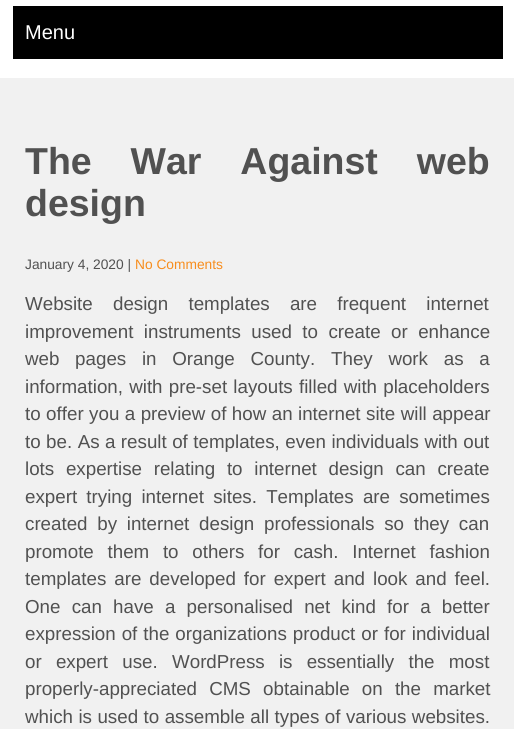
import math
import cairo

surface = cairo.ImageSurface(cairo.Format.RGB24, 514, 729)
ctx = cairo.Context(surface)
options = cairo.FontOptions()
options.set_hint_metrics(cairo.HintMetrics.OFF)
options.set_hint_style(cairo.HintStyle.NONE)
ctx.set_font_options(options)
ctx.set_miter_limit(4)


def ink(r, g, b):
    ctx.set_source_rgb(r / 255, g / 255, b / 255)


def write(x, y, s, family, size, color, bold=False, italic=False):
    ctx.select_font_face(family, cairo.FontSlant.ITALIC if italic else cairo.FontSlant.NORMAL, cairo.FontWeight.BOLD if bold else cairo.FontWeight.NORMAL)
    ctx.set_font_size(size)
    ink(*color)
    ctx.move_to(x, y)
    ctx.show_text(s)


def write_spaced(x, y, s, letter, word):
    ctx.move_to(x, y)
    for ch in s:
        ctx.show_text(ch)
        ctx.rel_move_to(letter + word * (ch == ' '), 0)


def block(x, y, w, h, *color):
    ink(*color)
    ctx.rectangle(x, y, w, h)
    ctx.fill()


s1 = dict(family="Arimo", size=20, color=(255, 255, 255))
s2 = dict(family="Arimo", size=37.5, color=(81, 81, 81), bold=True)
s3 = dict(family="Arimo", size=13.75, color=(81, 81, 81))
s4 = dict(family="Arimo", size=13.75, color=(247, 141, 29))

ink(241, 241, 241)
ctx.paint()
block(0, 0, 514, 78, 255, 255, 255)
block(13, 6, 490, 53, 0, 0, 0)
write(25, 39, "Menu", **s1)
ctx.select_font_face("Arimo", cairo.FontSlant.NORMAL, cairo.FontWeight.BOLD)
ctx.set_font_size(37.5)
ink(81, 81, 81)
write_spaced(25, 174, "The War Against web", 0, 28.5)
write(25, 216, "design", **s2)
write(25, 269, "January 4, 2020 |", **s3)
write(135, 269, "No Comments", **s4)
ctx.set_font_size(18.75)
ink(81, 81, 81)
write_spaced(25, 310, "Website design templates are frequent internet", 0, 15)
write_spaced(25, 338, "improvement instruments used to create or enhance", 0, 5.25)
write_spaced(25, 365, "web pages in Orange County.", 0, 10.5)
write_spaced(331, 365, "They work as a", 0, 10.5)
write_spaced(25, 393, "information, with pre-set layouts filled with placeholders", 0, 1)
write_spaced(25, 420, "to offer you a preview of how an internet site will appear", 0, 0.25)
write_spaced(25, 448, "to be. As a result of templates, even individuals with out", 0, 0.25)
write_spaced(25, 475, "lots expertise relating to internet design can create", 0, 6.5)
write_spaced(25, 503, "expert trying internet sites. Templates are sometimes", 0, 4)
write_spaced(25, 530, "created by internet design professionals so they can", 0, 4.5)
write_spaced(25, 558, "promote them to others for cash. Internet fashion", 0, 8.5)
write_spaced(25, 585, "templates are developed for expert and look and feel.", 0, 2.75)
write_spaced(25, 613, "One can have a personalised net kind for a better", 0, 6)
write_spaced(25, 640, "expression of the organizations product or for individual", 0, 0.75)
write_spaced(25, 668, "or expert use.", 0, 9)
write_spaced(172, 668, "WordPress is essentially the most", 0, 9)
write_spaced(25, 695, "properly-appreciated CMS obtainable on the market", 0, 7)
write_spaced(25, 723, "which is used to assemble all types of various websites.", 0, 0.25)
surface.write_to_png("screenshot.png")
